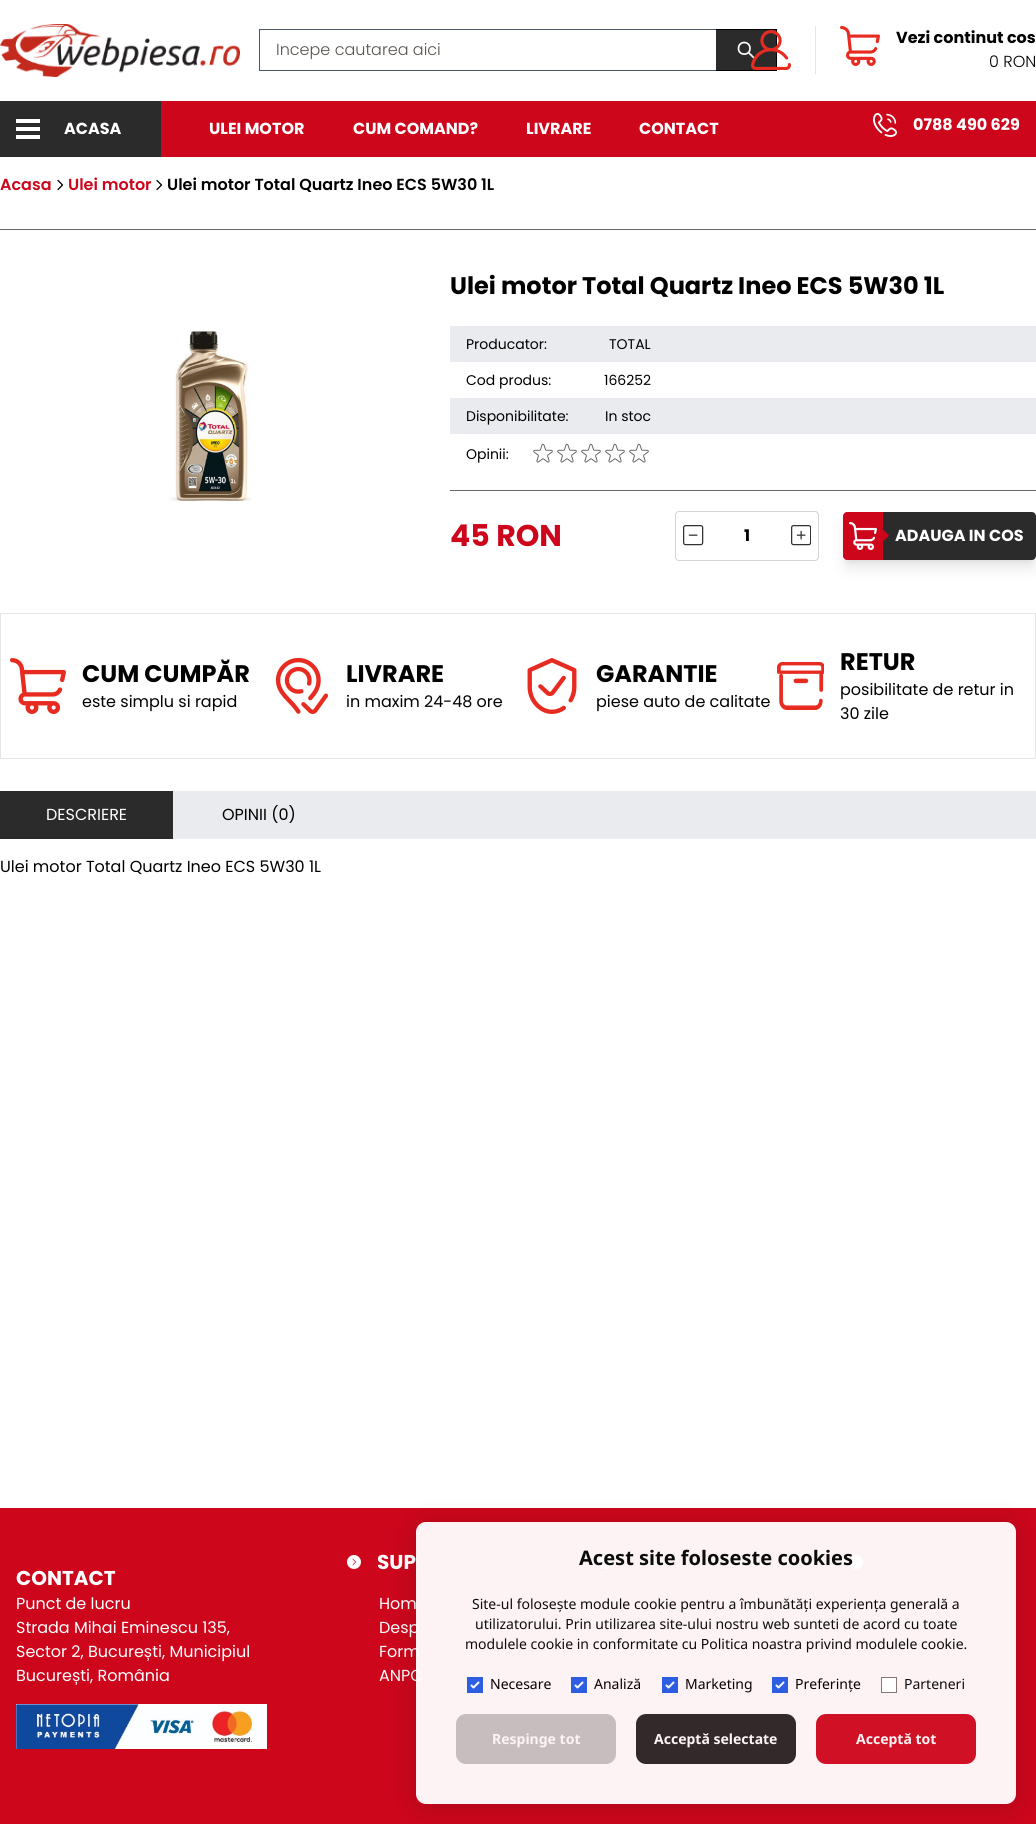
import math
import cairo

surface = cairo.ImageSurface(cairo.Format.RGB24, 1036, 1824)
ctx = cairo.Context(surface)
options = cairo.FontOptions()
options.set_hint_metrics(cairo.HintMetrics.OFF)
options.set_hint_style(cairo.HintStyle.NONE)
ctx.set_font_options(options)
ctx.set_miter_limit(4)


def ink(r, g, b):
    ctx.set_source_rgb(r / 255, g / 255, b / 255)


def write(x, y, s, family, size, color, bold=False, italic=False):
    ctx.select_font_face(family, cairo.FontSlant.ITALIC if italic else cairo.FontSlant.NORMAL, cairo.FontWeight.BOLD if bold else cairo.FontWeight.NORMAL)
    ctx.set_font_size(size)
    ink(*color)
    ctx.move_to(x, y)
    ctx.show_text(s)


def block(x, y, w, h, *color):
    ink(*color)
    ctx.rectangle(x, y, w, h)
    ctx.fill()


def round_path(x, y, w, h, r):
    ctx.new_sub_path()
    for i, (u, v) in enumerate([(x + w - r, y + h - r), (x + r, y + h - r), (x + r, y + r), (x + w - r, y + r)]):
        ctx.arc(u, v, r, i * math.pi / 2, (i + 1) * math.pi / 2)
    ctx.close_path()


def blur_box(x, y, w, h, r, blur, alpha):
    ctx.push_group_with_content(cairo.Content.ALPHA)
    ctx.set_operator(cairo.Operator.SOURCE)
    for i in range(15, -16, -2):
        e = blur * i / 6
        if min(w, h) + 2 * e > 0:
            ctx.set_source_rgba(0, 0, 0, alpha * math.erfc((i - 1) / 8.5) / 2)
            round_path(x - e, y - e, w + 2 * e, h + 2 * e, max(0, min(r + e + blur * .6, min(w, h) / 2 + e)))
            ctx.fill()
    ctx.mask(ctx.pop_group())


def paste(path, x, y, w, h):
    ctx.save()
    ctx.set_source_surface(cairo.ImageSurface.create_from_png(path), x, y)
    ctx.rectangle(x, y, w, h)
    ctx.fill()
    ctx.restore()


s1 = dict(family="Poppins Light", size=16, color=(87, 83, 78))
s2 = dict(family="Poppins", size=16, color=(0, 0, 0), bold=True)
s3 = dict(family="Poppins Light", size=16, color=(0, 0, 0))
s4 = dict(family="Poppins", size=16, color=(255, 255, 255), bold=True)
s5 = dict(family="Poppins SemiBold", size=16, color=(205, 6, 28))
s6 = dict(family="Poppins SemiBold", size=16, color=(0, 0, 0))
s7 = dict(family="Poppins", size=24, color=(0, 0, 0), bold=True)
s8 = dict(family="Poppins", size=14, color=(0, 0, 0))
s9 = dict(family="Poppins", size=30, color=(205, 6, 28), bold=True)
s10 = dict(family="Poppins", size=16, color=(0, 0, 0))
s11 = dict(family="Poppins", size=16, color=(255, 255, 255))
s12 = dict(family="Poppins", size=20, color=(255, 255, 255), bold=True)
s13 = dict(family="Noto Sans", size=20, color=(13, 12, 12), bold=True)
s14 = dict(family="Noto Sans", size=14, color=(13, 12, 12))
s15 = dict(family="Noto Sans", size=14, color=(10, 0, 1))
s16 = dict(family="Noto Sans", size=14, color=(253, 243, 244), bold=True)

ink(255, 255, 255)
ctx.paint()
paste("pic1.png", 0, 24, 240, 53)
block(259, 29, 457, 1, 75, 85, 99)
block(259, 70, 457, 1, 75, 85, 99)
block(259, 29, 1, 42, 75, 85, 99)
write(276, 55, "Incepe cautarea aici", **s1)
block(716, 30, 60, 40, 43, 43, 43)
block(716, 29, 61, 1, 0, 0, 0)
block(776, 29, 1, 42, 0, 0, 0)
block(716, 70, 61, 1, 0, 0, 0)
ctx.new_path()
ctx.move_to(753.5, 57.5)
ctx.line_to(748.5, 52.5)
ctx.move_to(750, 48.5)
ctx.curve_to(750, 56, 738.5, 56, 738.5, 48.5)
ctx.curve_to(738.5, 40.5, 750, 40.5, 750, 48.5)
ctx.close_path()
ink(255, 255, 255)
ctx.set_line_width(1.7)
ctx.set_line_cap(cairo.LineCap.ROUND)
ctx.set_line_join(cairo.LineJoin.ROUND)
ctx.stroke()
paste("pic2.png", 751, 30, 40, 40)
block(815, 26, 1, 48, 231, 229, 228)
paste("pic3.png", 840, 26, 40, 40)
write(896, 43, "Vezi continut cos", **s2)
write(989, 67, "0 RON", **s3)
block(161, 101, 875, 56, 205, 6, 28)
block(0, 101, 161, 56, 43, 43, 43)
block(16, 119, 24, 4, 255, 255, 255)
block(16, 127, 24, 4, 255, 255, 255)
block(16, 135, 24, 4, 255, 255, 255)
write(64, 134, "ACASA", **s4)
write(209, 134, "ULEI MOTOR", **s4)
write(353, 134, "CUM COMAND?", **s4)
write(526, 134, "LIVRARE", **s4)
write(639, 134, "CONTACT", **s4)
paste("pic4.png", 873, 113, 24, 24)
write(913, 130, "0788 490 629", **s4)
write(0, 190, "Acasa", **s5)
ctx.new_path()
ctx.move_to(58, 180.5)
ctx.line_to(62.5, 185)
ctx.line_to(58, 189.5)
ink(0, 0, 0)
ctx.set_line_width(1.3)
ctx.stroke()
write(68, 190, "Ulei motor", **s5)
ctx.new_path()
ctx.move_to(157, 180.5)
ctx.line_to(161.5, 185)
ctx.line_to(157, 189.5)
ink(0, 0, 0)
ctx.stroke()
write(167, 190, "Ulei motor Total Quartz Ineo ECS 5W30 1L", **s6)
block(0, 229, 1036, 1, 106, 105, 105)
paste("pic5.png", 169, 330, 83, 172)
write(450, 294, "Ulei motor Total Quartz Ineo ECS 5W30 1L", **s7)
block(450, 326, 586, 36, 234, 235, 239)
write(466, 349, "Producator:", **s8)
write(609, 349, "TOTAL", **s8)
write(466, 385, "Cod produs:", **s8)
write(604, 385, "166252", **s8)
block(450, 398, 586, 36, 234, 235, 239)
write(466, 421, "Disponibilitate:", **s8)
write(605, 421, "In stoc", **s8)
write(466, 459, "Opinii:", **s8)
paste("pic6.png", 533, 443, 20, 20)
paste("pic6.png", 557, 443, 20, 20)
paste("pic6.png", 581, 443, 20, 20)
paste("pic6.png", 605, 443, 20, 20)
paste("pic6.png", 629, 443, 20, 20)
block(450, 490, 586, 1, 106, 105, 105)
write(450, 546, "45 RON", **s9)
round_path(675.5, 511.5, 143, 49, 3.5)
ink(214, 211, 209)
ctx.set_line_width(1)
ctx.set_line_cap(cairo.LineCap.BUTT)
ctx.set_line_join(cairo.LineJoin.MITER)
ctx.stroke()
paste("pic7.png", 683, 525, 21, 21)
write(744, 541, "1", **s2)
paste("pic8.png", 791, 525, 20, 21)
ink(0, 0, 0)
blur_box(847, 520, 185, 40, 0, 3, 0.1)
blur_box(846, 525, 187, 42, 0, 7.5, 0.1)
ink(205, 6, 28)
ctx.new_path()
ctx.move_to(847, 512)
ctx.line_to(883, 512)
ctx.line_to(883, 560)
ctx.line_to(847, 560)
ctx.curve_to(845, 560, 843, 558, 843, 556)
ctx.line_to(843, 516)
ctx.curve_to(843, 514, 845, 512, 847, 512)
ctx.close_path()
ctx.fill()
paste("pic9.png", 849, 522, 28, 28)
ink(43, 43, 43)
ctx.new_path()
ctx.move_to(883, 512)
ctx.line_to(1032, 512)
ctx.curve_to(1034, 512, 1036, 514, 1036, 516)
ctx.line_to(1036, 556)
ctx.curve_to(1036, 558, 1034, 560, 1032, 560)
ctx.line_to(883, 560)
ctx.close_path()
ctx.fill()
ink(205, 6, 28)
ctx.new_path()
ctx.move_to(883.5, 530)
ctx.line_to(889, 535.5)
ctx.line_to(883.5, 541)
ctx.line_to(877.5, 535.5)
ctx.close_path()
ctx.fill()
write(895, 541, "ADAUGA IN COS", **s4)
ctx.rectangle(0.5, 613.5, 1035, 145)
ink(231, 229, 228)
ctx.stroke()
paste("pic10.png", 10, 658, 56, 56)
write(82, 682, "CUM CUMPĂR", **s7)
write(82, 707, "este simplu si rapid", **s10)
paste("pic11.png", 275, 658, 54, 56)
write(346, 682, "LIVRARE", **s7)
write(346, 707, "in maxim 24-48 ore", **s10)
paste("pic12.png", 527, 658, 50, 56)
write(596, 682, "GARANTIE", **s7)
write(596, 707, "piese auto de calitate", **s10)
paste("pic13.png", 777, 662, 47, 48)
write(840, 670, "RETUR", **s7)
write(840, 695, "posibilitate de retur in", **s10)
write(840, 719, "30 zile", **s10)
block(173, 791, 863, 48, 234, 235, 239)
block(0, 791, 173, 48, 43, 43, 43)
write(46, 820, "DESCRIERE", **s11)
write(222, 820, "OPINII (0)", **s10)
write(0, 872, "Ulei motor Total Quartz Ineo ECS 5W30 1L", **s10)
block(0, 1508, 1036, 316, 205, 6, 28)
paste("pic14.png", 347, 1555, 14, 14)
write(377, 1569, "SUP", **s12)
write(379, 1609, "Hom", **s11)
write(379, 1633, "Desp", **s11)
write(379, 1657, "Form", **s11)
write(379, 1681, "ANPC", **s11)
paste("pic14.png", 598, 1555, 14, 14)
paste("pic14.png", 849, 1555, 14, 14)
write(16, 1585, "CONTACT", **s12)
write(16, 1609, "Punct de lucru", **s11)
write(16, 1633, "Strada Mihai Eminescu 135,", **s11)
write(16, 1657, "Sector 2, București, Municipiul", **s11)
write(16, 1681, "București, România", **s11)
paste("pic15.png", 16, 1704, 251, 45)
ctx.save()
ctx.set_fill_rule(cairo.FillRule.EVEN_ODD)
ctx.new_path()
ctx.move_to(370, 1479)
ctx.line_to(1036, 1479)
ctx.line_to(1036, 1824)
ctx.line_to(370, 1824)
ctx.close_path()
ctx.move_to(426, 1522)
ctx.line_to(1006, 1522)
ctx.curve_to(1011.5, 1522, 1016, 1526.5, 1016, 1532)
ctx.line_to(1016, 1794)
ctx.curve_to(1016, 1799.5, 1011.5, 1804, 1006, 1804)
ctx.line_to(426, 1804)
ctx.curve_to(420.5, 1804, 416, 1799.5, 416, 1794)
ctx.line_to(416, 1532)
ctx.curve_to(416, 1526.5, 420.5, 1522, 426, 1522)
ctx.close_path()
ctx.clip()
ink(0, 0, 0)
blur_box(416, 1525, 600, 282, 10, 15, 0.15)
ctx.restore()
ctx.set_source_rgba(1, 1, 1, 0.95)
round_path(416, 1522, 600, 282, 10)
ctx.fill()
write(579, 1565, "Acest site foloseste cookies", **s13)
write(472, 1609, "Site-ul folosește module cookie pentru a îmbunătăți experiența generală a", **s14)
write(475, 1629, "utilizatorului. Prin utilizarea site-ului nostru web sunteti de acord cu toate", **s14)
write(465, 1649, "modulele cookie in conformitate cu Politica noastra privind modulele cookie.", **s14)
block(467, 1677, 16, 16, 45, 94, 225)
paste("pic16.png", 470, 1681, 10, 8)
write(490, 1689, "Necesare", **s15)
block(571, 1677, 16, 16, 45, 94, 225)
paste("pic16.png", 574, 1681, 10, 8)
write(594, 1689, "Analiză", **s15)
block(662, 1677, 16, 16, 45, 94, 225)
paste("pic16.png", 665, 1681, 10, 8)
write(685, 1689, "Marketing", **s15)
block(772, 1677, 16, 16, 45, 94, 225)
paste("pic16.png", 775, 1681, 10, 8)
write(795, 1689, "Preferințe", **s15)
ctx.set_source_rgba(1, 1, 1, 0.95)
ctx.rectangle(881.5, 1677.5, 15, 15)
ctx.fill_preserve()
ink(127, 120, 115)
ctx.stroke()
write(904, 1689, "Parteneri", **s14)
ink(199, 189, 190)
round_path(456, 1714, 160, 50, 10)
ctx.fill()
write(492, 1744, "Respinge tot", **s16)
ink(51, 41, 42)
round_path(636, 1714, 160, 50, 10)
ctx.fill()
write(654, 1744, "Acceptă selectate", **s16)
ctx.set_source_rgba(0.804, 0.024, 0.11, 0.95)
round_path(816, 1714, 160, 50, 10)
ctx.fill()
write(856, 1744, "Acceptă tot", **s16)
surface.write_to_png("screenshot.png")
